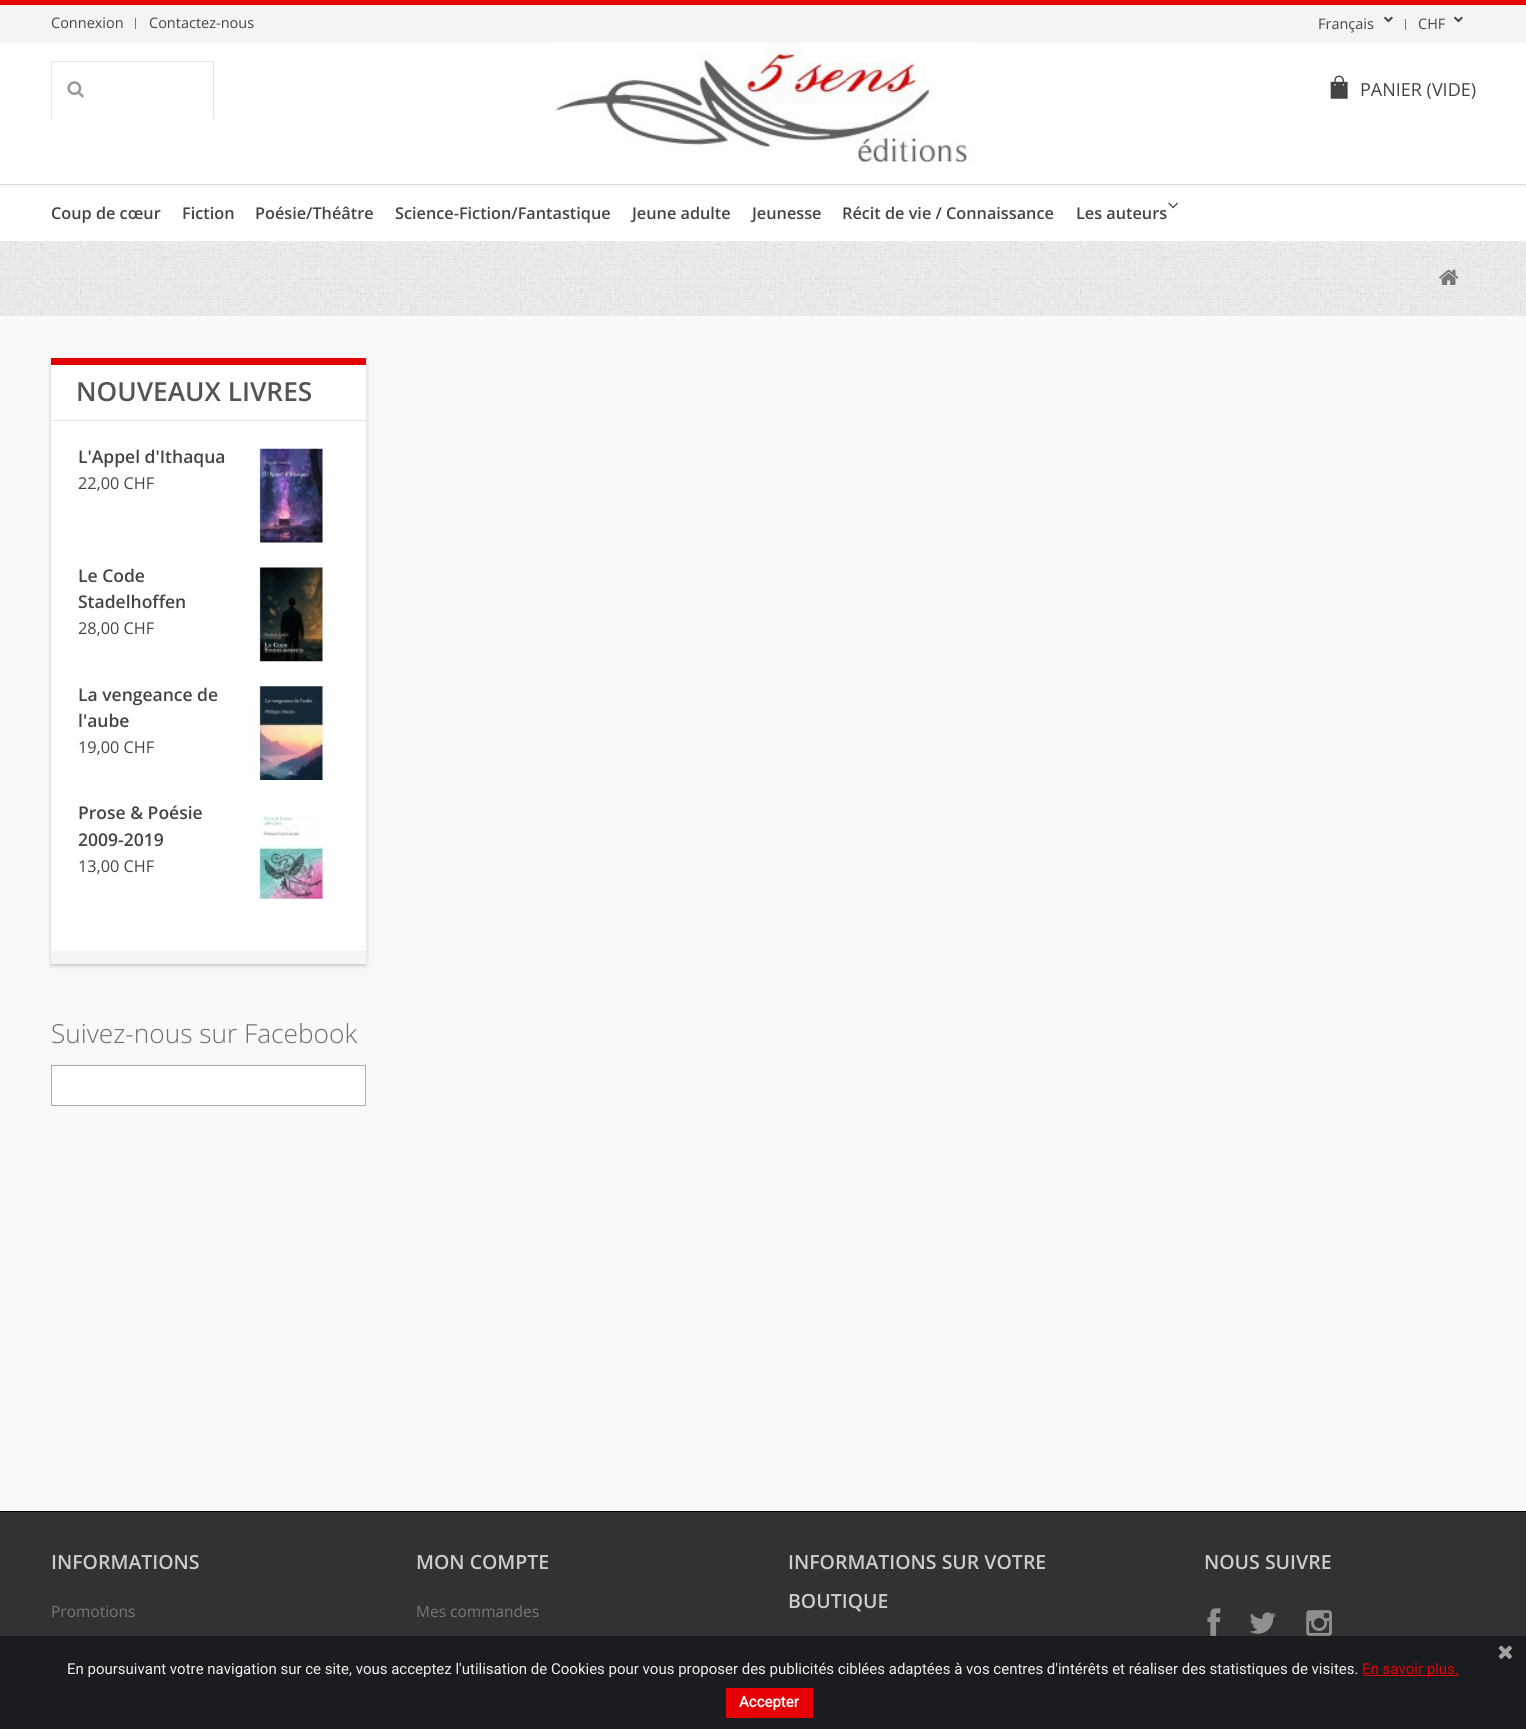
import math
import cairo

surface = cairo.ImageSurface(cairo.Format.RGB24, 1526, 1729)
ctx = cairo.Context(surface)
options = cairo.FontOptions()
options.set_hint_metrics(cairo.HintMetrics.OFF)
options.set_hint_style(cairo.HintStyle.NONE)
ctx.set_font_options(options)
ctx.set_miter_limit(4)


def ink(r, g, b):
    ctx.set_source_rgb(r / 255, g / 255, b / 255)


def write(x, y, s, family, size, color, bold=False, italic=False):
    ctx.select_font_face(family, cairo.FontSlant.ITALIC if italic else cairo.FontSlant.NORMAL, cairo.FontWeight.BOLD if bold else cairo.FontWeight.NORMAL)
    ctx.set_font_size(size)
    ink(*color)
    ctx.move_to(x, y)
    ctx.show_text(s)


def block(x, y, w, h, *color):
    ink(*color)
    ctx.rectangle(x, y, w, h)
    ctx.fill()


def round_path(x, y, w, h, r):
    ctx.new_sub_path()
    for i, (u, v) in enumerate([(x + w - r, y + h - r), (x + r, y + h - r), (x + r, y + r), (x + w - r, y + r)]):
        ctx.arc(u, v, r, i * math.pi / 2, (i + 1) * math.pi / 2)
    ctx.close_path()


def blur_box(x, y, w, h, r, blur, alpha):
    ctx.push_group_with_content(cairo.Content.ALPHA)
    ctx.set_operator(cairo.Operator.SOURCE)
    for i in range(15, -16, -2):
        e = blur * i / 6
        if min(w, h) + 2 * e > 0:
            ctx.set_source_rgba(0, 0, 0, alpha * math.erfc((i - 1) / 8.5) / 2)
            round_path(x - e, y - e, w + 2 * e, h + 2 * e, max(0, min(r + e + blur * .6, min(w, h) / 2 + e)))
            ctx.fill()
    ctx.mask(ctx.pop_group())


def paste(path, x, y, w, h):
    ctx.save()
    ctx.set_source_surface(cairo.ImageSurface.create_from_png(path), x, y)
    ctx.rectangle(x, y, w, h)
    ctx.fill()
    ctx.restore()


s1 = dict(family="Open Sans", size=14.5, color=(68, 68, 68))
s2 = dict(family="Open Sans", size=18, color=(68, 68, 68))
s3 = dict(family="Open Sans SemiBold", size=16.25, color=(68, 68, 68))
s4 = dict(family="Open Sans SemiBold", size=26.25, color=(85, 84, 84))
s5 = dict(family="Open Sans SemiBold", size=17.5, color=(68, 68, 68))
s6 = dict(family="Open Sans", size=16.25, color=(68, 68, 68))
s7 = dict(family="Open Sans Light", size=26.25, color=(111, 109, 109))
s8 = dict(family="Open Sans SemiBold", size=19.5, color=(204, 204, 204))
s9 = dict(family="Open Sans", size=15.5, color=(119, 119, 119))
s10 = dict(family="Roboto", size=15, color=(239, 239, 239))
s11 = dict(family="Roboto", size=15, color=(229, 0, 6))
s12 = dict(family="Roboto", size=15, color=(255, 255, 255), bold=True)

ink(255, 255, 255)
ctx.paint()
block(0, 184, 1526, 1, 233, 233, 233)
ink(0, 0, 0)
blur_box(-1, -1, 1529, 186, 0, 2, 0.1)
block(0, 43, 1526, 141, 255, 255, 255)
block(0, 0, 1526, 5, 229, 0, 6)
block(0, 5, 1526, 38, 244, 244, 244)
write(51, 28, "Connexion", **s1)
block(135, 18, 1, 11, 121, 121, 121)
write(149, 28, "Contactez-nous", **s1)
write(1318, 29, "Français", **s1)
paste("pic1.png", 1384, 16, 9, 7)
block(1405, 19, 1, 11, 121, 121, 121)
write(1418, 29, "CHF", **s1)
paste("pic1.png", 1454, 16, 9, 7)
block(51, 61, 163, 1, 228, 228, 228)
block(213, 61, 1, 58, 228, 228, 228)
block(51, 61, 1, 58, 228, 228, 228)
paste("pic2.png", 67, 81, 17, 17)
paste("pic3.png", 545, 42, 436, 121)
paste("pic4.png", 1330, 75, 18, 24)
write(1360, 96, "PANIER (VIDE)", **s2)
write(51, 219, "Coup de cœur", **s3)
write(182, 219, "Fiction", **s3)
write(255, 219, "Poésie/Théâtre", **s3)
write(395, 219, "Science-Fiction/Fantastique", **s3)
write(632, 219, "Jeune adulte", **s3)
write(752, 219, "Jeunesse", **s3)
write(842, 219, "Récit de vie / Connaissance", **s3)
paste("pic5.png", 1168, 202, 10, 7)
write(1076, 219, "Les auteurs", **s3)
paste("pic6.png", 0, 241, 1526, 75)
paste("pic7.png", 1439, 269, 20, 16)
block(0, 316, 1526, 1195, 249, 249, 249)
ink(0, 0, 0)
blur_box(51, 360, 315, 606, 0, 2, 0.2)
block(51, 365, 315, 586, 255, 255, 255)
block(51, 358, 315, 7, 229, 0, 6)
block(51, 951, 315, 13, 245, 245, 245)
block(51, 420, 315, 1, 224, 224, 224)
write(76, 401, "NOUVEAUX LIVRES", **s4)
write(78, 463, "L'Appel d'Ithaqua", **s5)
write(78, 489, "22,00 CHF", **s6)
paste("pic8.png", 256, 448, 69, 95)
write(78, 582, "Le Code", **s5)
write(78, 608, "Stadelhoffen", **s5)
write(78, 634, "28,00 CHF", **s6)
paste("pic9.png", 257, 567, 68, 95)
write(78, 701, "La vengeance de", **s5)
write(78, 727, "l'aube", **s5)
write(78, 753, "19,00 CHF", **s6)
paste("pic10.png", 245, 686, 81, 94)
write(78, 819, "Prose & Poésie", **s5)
write(78, 846, "2009-2019", **s5)
write(78, 872, "13,00 CHF", **s6)
paste("pic11.png", 255, 814, 70, 85)
write(51, 1043, "Suivez-nous sur Facebook", **s7)
ink(255, 255, 255)
ctx.rectangle(51.5, 1065.5, 314, 40)
ctx.fill_preserve()
ink(170, 170, 170)
ctx.set_line_width(1)
ctx.stroke()
block(0, 1512, 1526, 217, 49, 50, 51)
block(0, 1511, 1526, 1, 0, 0, 0)
write(51, 1569, "INFORMATIONS", **s8)
write(51, 1617, "Promotions", **s9)
write(416, 1569, "MON COMPTE", **s8)
write(416, 1617, "Mes commandes", **s9)
write(788, 1569, "INFORMATIONS SUR VOTRE", **s8)
write(788, 1608, "BOUTIQUE", **s8)
write(1204, 1569, "NOUS SUIVRE", **s8)
paste("pic12.png", 1207, 1608, 14, 28)
paste("pic13.png", 1249, 1612, 27, 22)
paste("pic14.png", 1306, 1610, 26, 26)
ctx.set_source_rgba(0.09, 0.098, 0.11, 0.85)
ctx.rectangle(0, 1636, 1526, 93)
ctx.fill()
paste("pic15.png", 1498, 1645, 14, 14)
write(67, 1674, "En poursuivant votre navigation sur ce site, vous acceptez l'utilisation de Cookies pour vous proposer des publicités ciblées adaptées à vos centres d'intérêts et réaliser des statistiques de visites.", **s10)
block(1363, 1675, 96, 1, 229, 0, 6)
write(1362, 1674, "En savoir plus.", **s11)
block(726, 1688, 87, 30, 229, 0, 6)
write(739, 1707, "Accepter", **s12)
surface.write_to_png("screenshot.png")
